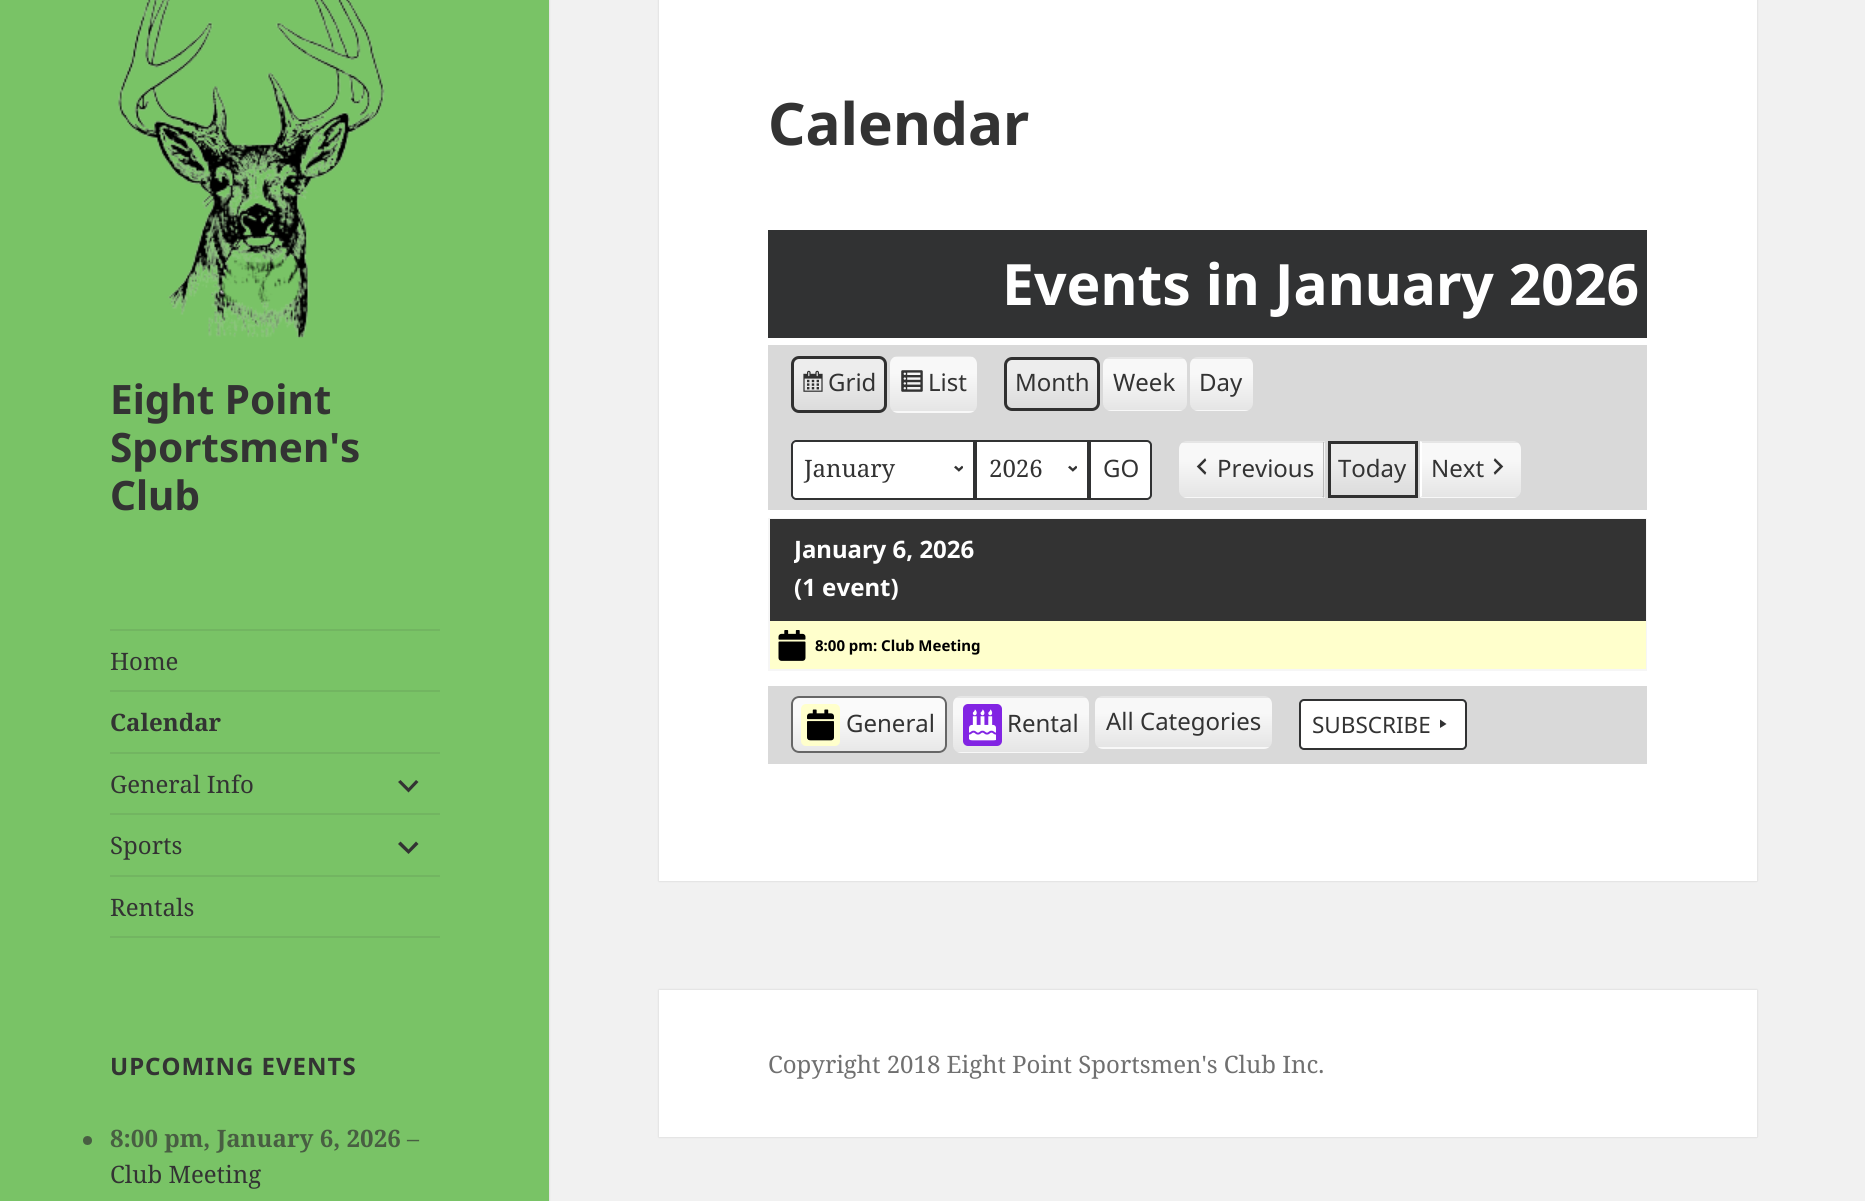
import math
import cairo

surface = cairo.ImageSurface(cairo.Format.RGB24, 1865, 1201)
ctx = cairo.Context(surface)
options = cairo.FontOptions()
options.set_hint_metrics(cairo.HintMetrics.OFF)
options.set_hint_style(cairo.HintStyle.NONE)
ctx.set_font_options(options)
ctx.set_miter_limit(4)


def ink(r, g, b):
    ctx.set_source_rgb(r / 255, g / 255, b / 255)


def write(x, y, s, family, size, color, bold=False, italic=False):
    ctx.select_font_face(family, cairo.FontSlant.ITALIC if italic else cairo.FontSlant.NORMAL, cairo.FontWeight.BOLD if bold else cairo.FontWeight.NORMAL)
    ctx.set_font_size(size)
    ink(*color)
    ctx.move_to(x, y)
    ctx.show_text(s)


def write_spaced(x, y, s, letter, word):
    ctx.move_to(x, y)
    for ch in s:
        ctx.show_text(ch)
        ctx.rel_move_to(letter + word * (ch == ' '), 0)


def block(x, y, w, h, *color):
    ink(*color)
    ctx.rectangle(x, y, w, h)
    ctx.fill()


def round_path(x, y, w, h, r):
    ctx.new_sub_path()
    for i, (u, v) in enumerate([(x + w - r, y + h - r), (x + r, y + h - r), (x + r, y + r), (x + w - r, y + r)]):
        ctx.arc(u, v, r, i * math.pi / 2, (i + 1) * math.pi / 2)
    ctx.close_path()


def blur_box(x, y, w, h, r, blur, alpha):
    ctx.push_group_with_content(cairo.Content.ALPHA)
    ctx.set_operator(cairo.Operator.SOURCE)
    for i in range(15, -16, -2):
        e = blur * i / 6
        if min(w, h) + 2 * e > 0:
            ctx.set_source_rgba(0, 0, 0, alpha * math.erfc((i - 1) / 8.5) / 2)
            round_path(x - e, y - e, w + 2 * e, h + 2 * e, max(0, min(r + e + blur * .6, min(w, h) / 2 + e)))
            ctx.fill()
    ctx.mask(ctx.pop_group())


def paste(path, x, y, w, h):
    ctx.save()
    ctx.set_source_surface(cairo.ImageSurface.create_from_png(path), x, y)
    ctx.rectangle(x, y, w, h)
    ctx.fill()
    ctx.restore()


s1 = dict(family="Noto Sans", size=40.5, color=(51, 51, 51), bold=True)
s2 = dict(family="Noto Serif", size=24, color=(51, 51, 51))
s3 = dict(family="Noto Serif", size=24, color=(51, 51, 51), bold=True)
s4 = dict(family="Noto Serif", size=24, color=(72, 94, 66), bold=True)
s5 = dict(family="Noto Serif", size=24, color=(72, 94, 66))
s6 = dict(family="Noto Sans", size=58.5, color=(51, 51, 51), bold=True)
s7 = dict(family="Noto Sans", size=57, color=(255, 255, 255), bold=True)
s8 = dict(family="Noto Sans", size=24, color=(51, 51, 51))
s9 = dict(family="Noto Sans", size=24, color=(255, 255, 255), bold=True)
s10 = dict(family="Noto Sans", size=15, color=(0, 0, 0), bold=True)
s11 = dict(family="Noto Sans", size=22.5, color=(51, 51, 51))
s12 = dict(family="Noto Serif", size=24, color=(112, 112, 112))

ink(241, 241, 241)
ctx.paint()
ink(0, 0, 0)
blur_box(0, 0, 549, 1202, 0, 1, 0.15)
block(0, 0, 549, 1201, 121, 195, 102)
paste("pic1.png", 118, 0, 267, 338)
write(110, 414, "Eight Point", **s1)
write(110, 462, "Sportsmen's", **s1)
write(110, 510, "Club", **s1)
block(110, 629, 330, 2, 114, 181, 97)
block(110, 936, 330, 2, 114, 181, 97)
write(110, 670, "Home", **s2)
block(110, 690, 330, 2, 114, 181, 97)
write(110, 731, "Calendar", **s3)
block(110, 752, 330, 2, 114, 181, 97)
write(110, 793, "General Info", **s2)
ctx.new_path()
ctx.move_to(416, 780)
ctx.line_to(418.5, 782)
ctx.line_to(408.5, 792.5)
ctx.line_to(398, 782)
ctx.line_to(400.5, 780)
ctx.line_to(408.5, 788)
ctx.close_path()
ctx.fill()
block(110, 813, 330, 2, 114, 181, 97)
write(110, 854, "Sports", **s2)
ctx.new_path()
ctx.move_to(416, 841.5)
ctx.line_to(418.5, 844)
ctx.line_to(408.5, 854)
ctx.line_to(398, 844)
ctx.line_to(400.5, 841.5)
ctx.line_to(408.5, 849.5)
ctx.close_path()
ctx.fill()
block(110, 875, 330, 2, 114, 181, 97)
write(110, 916, "Rentals", **s2)
ctx.select_font_face("Noto Sans", cairo.FontSlant.NORMAL, cairo.FontWeight.BOLD)
write_spaced(110, 1075, "UPCOMING EVENTS", 1, 0)
ink(72, 94, 66)
ctx.new_path()
ctx.arc(87.5, 1140.5, 4.5, 0, 2 * math.pi)
ctx.fill()
write(110, 1147, "8:00 pm, January 6, 2026", **s4)
write(407, 1147, "–", **s5)
write(110, 1183, "Club Meeting", **s2)
ink(0, 0, 0)
blur_box(659, -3, 1098, 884, 0, 1, 0.15)
block(659, 0, 1098, 881, 255, 255, 255)
write(768, 145, "Calendar", **s6)
block(768, 230, 879, 108, 49, 50, 51)
write(1002, 305, "Events in January 2026", **s7)
block(768, 345, 879, 165, 217, 217, 217)
ctx.save()
round_path(791, 356, 96, 57, 8)
ctx.clip()
gradient = cairo.LinearGradient(839, 411, 839, 357)
gradient.add_color_stop_rgba(0, 0.859, 0.859, 0.859, 1)
gradient.add_color_stop_rgba(0.7, 0.929, 0.929, 0.929, 1)
ctx.set_source(gradient)
ctx.rectangle(791, 357, 96, 54)
ctx.fill()
ctx.restore()
paste("pic2.png", 803, 370, 20, 22)
round_path(792.5, 357.5, 93, 54, 6.5)
ink(48, 48, 48)
ctx.set_line_width(3)
ctx.stroke()
write(828, 391, "Grid", **s8)
ctx.save()
round_path(890, 356, 87, 57, 8)
ctx.clip()
gradient = cairo.LinearGradient(933, 357, 933, 303)
gradient.add_color_stop_rgba(0, 0.898, 0.898, 0.898, 1)
gradient.add_color_stop_rgba(0.7, 0.973, 0.973, 0.973, 1)
ctx.set_source(gradient)
ctx.rectangle(890, 356, 87, 1)
ctx.fill()
gradient = cairo.LinearGradient(933, 411, 933, 357)
gradient.add_color_stop_rgba(0, 0.898, 0.898, 0.898, 1)
gradient.add_color_stop_rgba(0.7, 0.973, 0.973, 0.973, 1)
ctx.set_source(gradient)
ctx.rectangle(890, 357, 87, 54)
ctx.fill()
gradient = cairo.LinearGradient(933, 465, 933, 411)
gradient.add_color_stop_rgba(0, 0.898, 0.898, 0.898, 1)
gradient.add_color_stop_rgba(0.7, 0.973, 0.973, 0.973, 1)
ctx.set_source(gradient)
ctx.rectangle(890, 411, 87, 2)
ctx.fill()
ctx.restore()
paste("pic3.png", 901, 370, 22, 22)
write(928, 391, "List", **s8)
ctx.save()
round_path(1004, 357, 96, 54, 8)
ctx.clip()
gradient = cairo.LinearGradient(1052, 410, 1052, 359)
gradient.add_color_stop_rgba(0, 0.859, 0.859, 0.859, 1)
gradient.add_color_stop_rgba(0.7, 0.929, 0.929, 0.929, 1)
ctx.set_source(gradient)
ctx.rectangle(1004, 359, 96, 51)
ctx.fill()
ctx.restore()
round_path(1005.5, 358.5, 93, 51, 6.5)
ink(48, 48, 48)
ctx.stroke()
write(1015, 391, "Month", **s8)
ctx.save()
round_path(1103, 357, 84, 54, 8)
ctx.clip()
gradient = cairo.LinearGradient(1145, 359, 1145, 308)
gradient.add_color_stop_rgba(0, 0.898, 0.898, 0.898, 1)
gradient.add_color_stop_rgba(0.7, 0.973, 0.973, 0.973, 1)
ctx.set_source(gradient)
ctx.rectangle(1103, 357, 84, 2)
ctx.fill()
gradient = cairo.LinearGradient(1145, 410, 1145, 359)
gradient.add_color_stop_rgba(0, 0.898, 0.898, 0.898, 1)
gradient.add_color_stop_rgba(0.7, 0.973, 0.973, 0.973, 1)
ctx.set_source(gradient)
ctx.rectangle(1103, 359, 84, 51)
ctx.fill()
gradient = cairo.LinearGradient(1145, 461, 1145, 410)
gradient.add_color_stop_rgba(0, 0.898, 0.898, 0.898, 1)
gradient.add_color_stop_rgba(0.7, 0.973, 0.973, 0.973, 1)
ctx.set_source(gradient)
ctx.rectangle(1103, 410, 84, 1)
ctx.fill()
ctx.restore()
write(1113, 391, "Week", **s8)
ctx.save()
round_path(1190, 357, 63, 54, 8)
ctx.clip()
gradient = cairo.LinearGradient(1221, 359, 1221, 308)
gradient.add_color_stop_rgba(0, 0.898, 0.898, 0.898, 1)
gradient.add_color_stop_rgba(0.7, 0.973, 0.973, 0.973, 1)
ctx.set_source(gradient)
ctx.rectangle(1190, 357, 63, 2)
ctx.fill()
gradient = cairo.LinearGradient(1221, 410, 1221, 359)
gradient.add_color_stop_rgba(0, 0.898, 0.898, 0.898, 1)
gradient.add_color_stop_rgba(0.7, 0.973, 0.973, 0.973, 1)
ctx.set_source(gradient)
ctx.rectangle(1190, 359, 63, 51)
ctx.fill()
gradient = cairo.LinearGradient(1221, 461, 1221, 410)
gradient.add_color_stop_rgba(0, 0.898, 0.898, 0.898, 1)
gradient.add_color_stop_rgba(0.7, 0.973, 0.973, 0.973, 1)
ctx.set_source(gradient)
ctx.rectangle(1190, 410, 63, 1)
ctx.fill()
ctx.restore()
write(1199, 391, "Day", **s8)
ink(255, 255, 255)
ctx.new_path()
ctx.move_to(796, 440)
ctx.line_to(975, 440)
ctx.line_to(975, 500)
ctx.line_to(796, 500)
ctx.curve_to(793, 500, 791, 498, 791, 495)
ctx.line_to(791, 445)
ctx.curve_to(791, 442, 793, 440, 796, 440)
ctx.close_path()
ctx.fill()
paste("pic4.png", 954, 465, 9, 7)
ctx.new_path()
ctx.move_to(796, 441)
ctx.line_to(974, 441)
ctx.line_to(974, 499)
ctx.line_to(796, 499)
ctx.curve_to(794, 499, 792, 497, 792, 495)
ctx.line_to(792, 445)
ctx.curve_to(792, 443, 794, 441, 796, 441)
ctx.close_path()
ink(49, 50, 51)
ctx.set_line_width(2)
ctx.stroke()
write(804, 477, "January", **s2)
block(977, 442, 110, 56, 255, 255, 255)
paste("pic4.png", 1068, 465, 9, 7)
ctx.rectangle(976, 441, 112, 58)
ink(49, 50, 51)
ctx.stroke()
write(989, 477, "2026", **s2)
ink(255, 255, 255)
ctx.new_path()
ctx.move_to(1090, 441)
ctx.line_to(1147, 441)
ctx.curve_to(1149, 441, 1151, 443, 1151, 445)
ctx.line_to(1151, 495)
ctx.curve_to(1151, 497, 1149, 499, 1147, 499)
ctx.line_to(1090, 499)
ctx.close_path()
ctx.fill_preserve()
ink(49, 50, 51)
ctx.stroke()
write(1103, 477, "GO", **s8)
ctx.save()
ctx.new_path()
ctx.move_to(1187, 441)
ctx.line_to(1325, 441)
ctx.line_to(1325, 498)
ctx.line_to(1187, 498)
ctx.curve_to(1182.5, 498, 1179, 494.5, 1179, 490)
ctx.line_to(1179, 449)
ctx.curve_to(1179, 444.5, 1182.5, 441, 1187, 441)
ctx.close_path()
ctx.clip()
gradient = cairo.LinearGradient(1252, 443, 1252, 389)
gradient.add_color_stop_rgba(0, 0.898, 0.898, 0.898, 1)
gradient.add_color_stop_rgba(0.7, 0.973, 0.973, 0.973, 1)
ctx.set_source(gradient)
ctx.rectangle(1179, 441, 146, 2)
ctx.fill()
gradient = cairo.LinearGradient(1252, 497, 1252, 443)
gradient.add_color_stop_rgba(0, 0.898, 0.898, 0.898, 1)
gradient.add_color_stop_rgba(0.7, 0.973, 0.973, 0.973, 1)
ctx.set_source(gradient)
ctx.rectangle(1179, 443, 146, 54)
ctx.fill()
gradient = cairo.LinearGradient(1252, 551, 1252, 497)
gradient.add_color_stop_rgba(0, 0.898, 0.898, 0.898, 1)
gradient.add_color_stop_rgba(0.7, 0.973, 0.973, 0.973, 1)
ctx.set_source(gradient)
ctx.rectangle(1179, 497, 146, 1)
ctx.fill()
ctx.restore()
ink(187, 187, 187)
ctx.new_path()
ctx.move_to(1324, 442)
ctx.line_to(1324, 498)
ctx.line_to(1322, 496)
ctx.line_to(1323, 496)
ctx.line_to(1323, 442)
ctx.close_path()
ctx.fill()
paste("pic5.png", 1196, 458, 11, 17)
write(1217, 477, "Previous", **s8)
gradient = cairo.LinearGradient(1373, 497, 1373, 443)
gradient.add_color_stop_rgba(0, 0.859, 0.859, 0.859, 1)
gradient.add_color_stop_rgba(0.7, 0.929, 0.929, 0.929, 1)
ctx.set_source(gradient)
ctx.rectangle(1331, 444, 84, 51)
ctx.fill()
ctx.rectangle(1329.5, 442.5, 87, 54)
ink(48, 48, 48)
ctx.set_line_width(3)
ctx.stroke()
write(1338, 477, "Today", **s8)
ctx.save()
ctx.new_path()
ctx.move_to(1421, 441)
ctx.line_to(1513, 441)
ctx.curve_to(1517.5, 441, 1521, 444.5, 1521, 449)
ctx.line_to(1521, 490)
ctx.curve_to(1521, 494.5, 1517.5, 498, 1513, 498)
ctx.line_to(1421, 498)
ctx.close_path()
ctx.clip()
gradient = cairo.LinearGradient(1471, 443, 1471, 389)
gradient.add_color_stop_rgba(0, 0.898, 0.898, 0.898, 1)
gradient.add_color_stop_rgba(0.7, 0.973, 0.973, 0.973, 1)
ctx.set_source(gradient)
ctx.rectangle(1421, 441, 100, 2)
ctx.fill()
gradient = cairo.LinearGradient(1471, 497, 1471, 443)
gradient.add_color_stop_rgba(0, 0.898, 0.898, 0.898, 1)
gradient.add_color_stop_rgba(0.7, 0.973, 0.973, 0.973, 1)
ctx.set_source(gradient)
ctx.rectangle(1421, 443, 100, 54)
ctx.fill()
gradient = cairo.LinearGradient(1471, 551, 1471, 497)
gradient.add_color_stop_rgba(0, 0.898, 0.898, 0.898, 1)
gradient.add_color_stop_rgba(0.7, 0.973, 0.973, 0.973, 1)
ctx.set_source(gradient)
ctx.rectangle(1421, 497, 100, 1)
ctx.fill()
ctx.restore()
ink(255, 255, 255)
ctx.new_path()
ctx.move_to(1420, 498)
ctx.line_to(1422, 496)
ctx.line_to(1422, 442)
ctx.line_to(1420, 441)
ctx.close_path()
ctx.fill()
write(1431, 477, "Next", **s8)
paste("pic6.png", 1493, 458, 11, 17)
ctx.rectangle(769, 519, 877, 151)
ink(246, 246, 246)
ctx.set_line_width(2)
ctx.stroke()
block(770, 519, 876, 102, 51, 51, 51)
ctx.save()
ctx.rectangle(794, 531, 828, 39)
ctx.clip()
write(794, 558, "January 6, 2026", **s9)
ctx.restore()
write(794, 596, "(1 event)", **s9)
block(770, 621, 876, 48, 255, 255, 204)
paste("pic7.png", 778, 630, 28, 31)
write(815, 651, "8:00 pm: Club Meeting", **s10)
block(768, 686, 879, 78, 217, 217, 217)
ink(255, 255, 255)
round_path(791, 696, 156, 57, 8)
ctx.fill()
ctx.save()
round_path(791, 696, 156, 57, 8)
ctx.clip()
gradient = cairo.LinearGradient(869, 752, 869, 698)
gradient.add_color_stop_rgba(0, 0.902, 0.902, 0.902, 0.95)
gradient.add_color_stop_rgba(0.7, 0.98, 0.98, 0.98, 0.95)
ctx.set_source(gradient)
ctx.rectangle(791, 698, 156, 54)
ctx.fill()
ctx.restore()
round_path(792, 697, 154, 55, 7)
ink(102, 102, 102)
ctx.stroke()
ink(255, 255, 204)
round_path(801, 704, 39, 42, 5)
ctx.fill()
paste("pic8.png", 807, 709, 27, 32)
write(846, 732, "General", **s8)
ctx.save()
round_path(953, 696, 136, 57, 8)
ctx.clip()
gradient = cairo.LinearGradient(1021, 698, 1021, 644)
gradient.add_color_stop_rgba(0, 0.898, 0.898, 0.898, 1)
gradient.add_color_stop_rgba(0.7, 0.973, 0.973, 0.973, 1)
ctx.set_source(gradient)
ctx.rectangle(953, 696, 136, 2)
ctx.fill()
gradient = cairo.LinearGradient(1021, 752, 1021, 698)
gradient.add_color_stop_rgba(0, 0.898, 0.898, 0.898, 1)
gradient.add_color_stop_rgba(0.7, 0.973, 0.973, 0.973, 1)
ctx.set_source(gradient)
ctx.rectangle(953, 698, 136, 54)
ctx.fill()
gradient = cairo.LinearGradient(1021, 806, 1021, 752)
gradient.add_color_stop_rgba(0, 0.898, 0.898, 0.898, 1)
gradient.add_color_stop_rgba(0.7, 0.973, 0.973, 0.973, 1)
ctx.set_source(gradient)
ctx.rectangle(953, 752, 136, 1)
ctx.fill()
ctx.restore()
ink(130, 36, 227)
round_path(963, 704, 39, 42, 5)
ctx.fill()
paste("pic9.png", 969, 709, 27, 32)
write(1007, 732, "Rental", **s8)
ctx.save()
round_path(1095, 696, 177, 53, 8)
ctx.clip()
gradient = cairo.LinearGradient(1184, 698, 1184, 648)
gradient.add_color_stop_rgba(0, 0.898, 0.898, 0.898, 1)
gradient.add_color_stop_rgba(0.7, 0.973, 0.973, 0.973, 1)
ctx.set_source(gradient)
ctx.rectangle(1095, 696, 177, 2)
ctx.fill()
gradient = cairo.LinearGradient(1184, 747, 1184, 698)
gradient.add_color_stop_rgba(0, 0.898, 0.898, 0.898, 1)
gradient.add_color_stop_rgba(0.7, 0.973, 0.973, 0.973, 1)
ctx.set_source(gradient)
ctx.rectangle(1095, 698, 177, 49)
ctx.fill()
gradient = cairo.LinearGradient(1184, 797, 1184, 747)
gradient.add_color_stop_rgba(0, 0.898, 0.898, 0.898, 1)
gradient.add_color_stop_rgba(0.7, 0.973, 0.973, 0.973, 1)
ctx.set_source(gradient)
ctx.rectangle(1095, 747, 177, 2)
ctx.fill()
ctx.restore()
write(1106, 730, "All Categories", **s8)
ink(255, 255, 255)
round_path(1300, 700, 166, 49, 4)
ctx.fill_preserve()
ink(49, 50, 51)
ctx.stroke()
write(1312, 733, "SUBSCRIBE", **s11)
ink(49, 50, 51)
ctx.new_path()
ctx.move_to(1440, 719.5)
ctx.line_to(1446.5, 724)
ctx.line_to(1440, 728)
ctx.close_path()
ctx.fill()
ink(0, 0, 0)
blur_box(659, 990, 1098, 147, 0, 1, 0.15)
block(659, 990, 1098, 147, 255, 255, 255)
write(768, 1073, "Copyright 2018 Eight Point Sportsmen's Club Inc.", **s12)
surface.write_to_png("screenshot.png")
